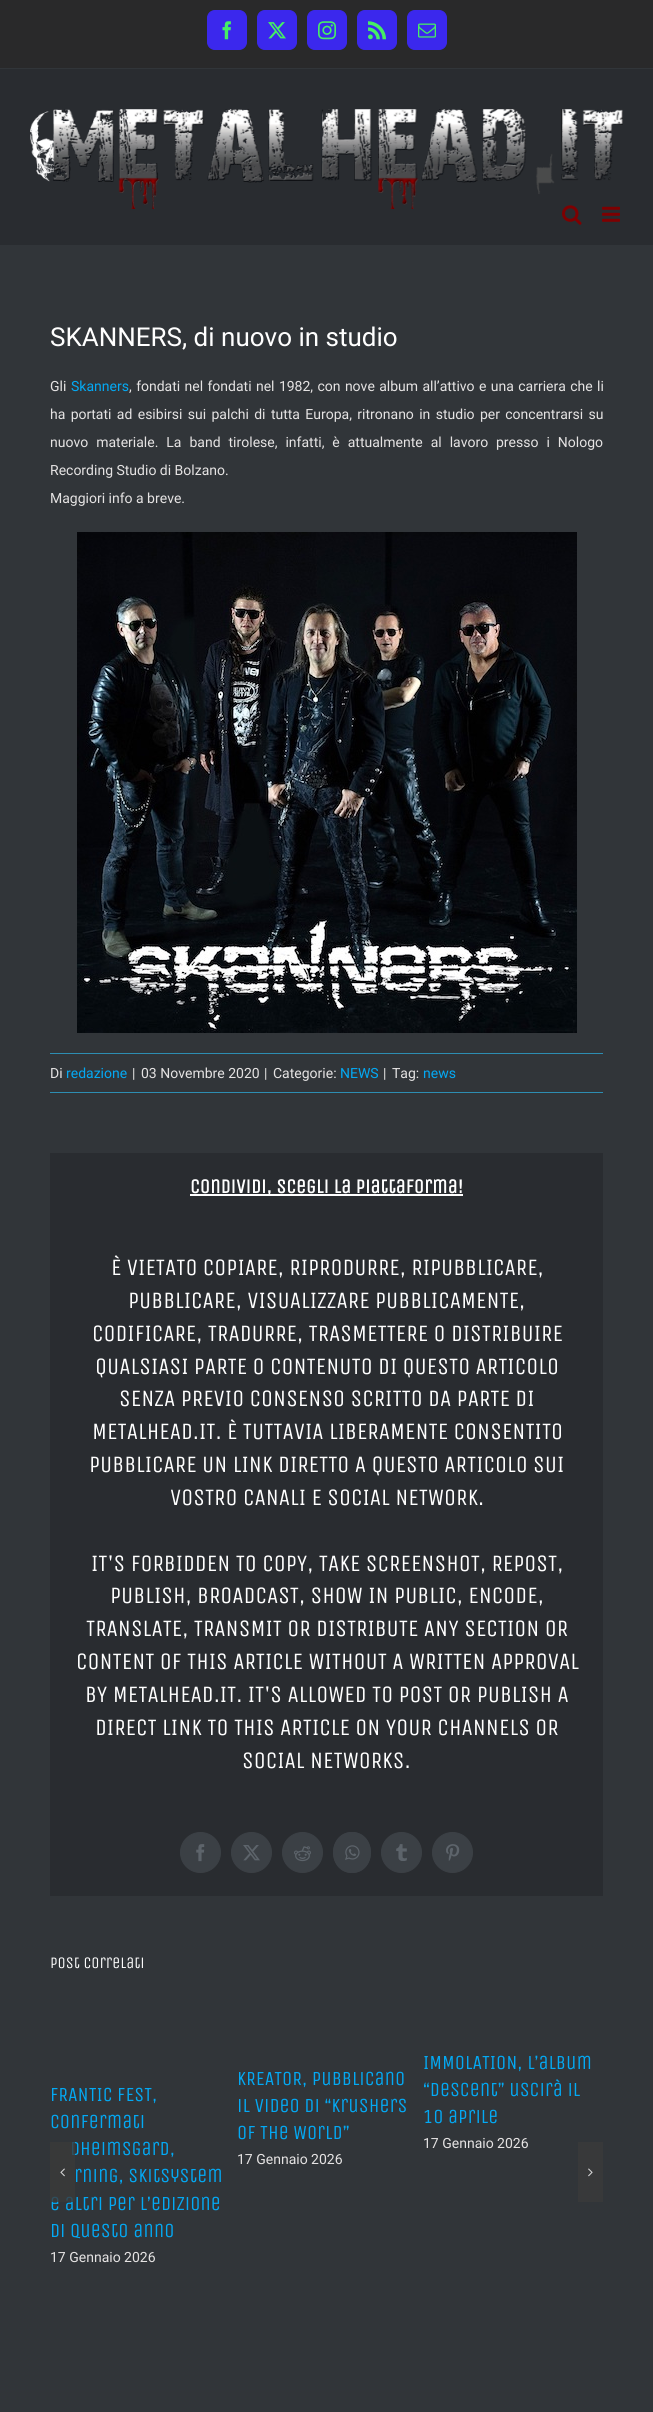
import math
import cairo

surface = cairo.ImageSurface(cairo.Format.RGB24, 653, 2412)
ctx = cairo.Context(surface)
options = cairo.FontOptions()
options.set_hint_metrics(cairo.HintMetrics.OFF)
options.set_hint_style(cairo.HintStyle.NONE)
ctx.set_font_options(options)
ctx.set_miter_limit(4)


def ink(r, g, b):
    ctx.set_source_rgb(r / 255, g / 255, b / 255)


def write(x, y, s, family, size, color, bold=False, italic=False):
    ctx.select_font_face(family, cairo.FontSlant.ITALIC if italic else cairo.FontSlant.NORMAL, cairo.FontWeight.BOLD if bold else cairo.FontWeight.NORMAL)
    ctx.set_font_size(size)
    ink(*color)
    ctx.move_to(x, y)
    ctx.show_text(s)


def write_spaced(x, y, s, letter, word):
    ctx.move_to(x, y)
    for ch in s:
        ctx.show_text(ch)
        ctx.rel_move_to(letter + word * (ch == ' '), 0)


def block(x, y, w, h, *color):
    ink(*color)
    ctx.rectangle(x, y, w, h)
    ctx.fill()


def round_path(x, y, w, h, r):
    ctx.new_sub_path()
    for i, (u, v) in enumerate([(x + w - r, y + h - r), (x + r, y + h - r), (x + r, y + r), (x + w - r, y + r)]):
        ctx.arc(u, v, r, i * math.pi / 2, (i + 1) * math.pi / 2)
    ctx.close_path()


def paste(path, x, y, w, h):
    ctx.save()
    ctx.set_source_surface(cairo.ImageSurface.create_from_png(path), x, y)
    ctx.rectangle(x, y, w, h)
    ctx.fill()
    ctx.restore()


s1 = dict(family="Roboto", size=26, color=(255, 255, 255))
s2 = dict(family="Roboto", size=14, color=(229, 227, 227))
s3 = dict(family="Roboto", size=14, color=(3, 169, 244))
s4 = dict(family="Unica One", size=20, color=(255, 255, 255), bold=True)
s5 = dict(family="Unica One", size=23.5, color=(255, 255, 255))
s6 = dict(family="Unica One", size=16, color=(255, 255, 255))
s7 = dict(family="Unica One", size=20, color=(3, 169, 244))

ink(49, 53, 57)
ctx.paint()
block(0, 0, 653, 68, 41, 41, 42)
ink(59, 40, 237)
round_path(207.5, 10.5, 39, 39, 7.5)
ctx.fill_preserve()
ctx.set_line_width(1)
ctx.stroke()
paste("pic1.png", 222, 21, 9, 19)
round_path(257.5, 10.5, 39, 39, 7.5)
ctx.fill_preserve()
ctx.stroke()
paste("pic2.png", 268, 22, 18, 17)
round_path(307.5, 10.5, 39, 39, 7.5)
ctx.fill_preserve()
ctx.stroke()
paste("pic3.png", 318, 21, 18, 19)
round_path(357.5, 10.5, 39, 39, 7.5)
ctx.fill_preserve()
ctx.stroke()
paste("pic4.png", 368, 21, 18, 19)
round_path(407.5, 10.5, 39, 39, 7.5)
ctx.fill_preserve()
ctx.stroke()
paste("pic5.png", 418, 23, 18, 15)
block(0, 69, 653, 176, 41, 44, 48)
paste("pic6.png", 30, 109, 593, 100)
paste("pic7.png", 562, 205, 20, 20)
paste("pic8.png", 602, 206, 18, 16)
write(50, 346, "SKANNERS, di nuovo in studio", **s1)
write(50, 391, "Gli", **s2)
write(71, 391, "Skanners", **s3)
ink(229, 227, 227)
write_spaced(129, 391, ", fondati nel fondati nel 1982, con nove album all’attivo e una carriera che li", 0, 0.9)
write_spaced(50, 419, "ha portati ad esibirsi sui palchi di tutta Europa, ritronano in studio per concentrarsi su", 0, 1.9)
write_spaced(50, 447, "nuovo materiale. La band tirolese, infatti, è attualmente al lavoro", 0, 4.5)
write_spaced(496, 447, "presso i Nologo", 0, 4.5)
write(50, 475, "Recording Studio di Bolzano.", **s2)
write(50, 503, "Maggiori info a breve.", **s2)
paste("pic9.png", 77, 532, 500, 501)
block(50, 1053, 553, 1, 45, 141, 178)
block(50, 1092, 553, 1, 45, 141, 178)
write(50, 1078, "Di", **s2)
write(66, 1078, "redazione", **s3)
write(132, 1078, "|", **s2)
write(141, 1078, "03 Novembre 2020", **s2)
write(264, 1078, "|", **s2)
write(273, 1078, "Categorie:", **s2)
write(340, 1078, "NEWS", **s3)
write(383, 1078, "|", **s2)
write(392, 1078, "Tag:", **s2)
write(423, 1078, "news", **s3)
block(50, 1153, 553, 743, 41, 44, 48)
block(190, 1194, 273, 2, 255, 255, 255)
write(190, 1193, "Condividi, Scegli la piattaforma!", **s4)
write(111, 1275, "È VIETATO COPIARE, RIPRODURRE, RIPUBBLICARE,", **s5)
write(128, 1308, "PUBBLICARE, VISUALIZZARE PUBBLICAMENTE,", **s5)
write(92, 1341, "CODIFICARE, TRADURRE, TRASMETTERE O DISTRIBUIRE", **s5)
write(95, 1374, "QUALSIASI PARTE O CONTENUTO DI QUESTO ARTICOLO", **s5)
write(119, 1406, "SENZA PREVIO CONSENSO SCRITTO DA PARTE DI", **s5)
write(92, 1439, "METALHEAD.IT. È TUTTAVIA LIBERAMENTE CONSENTITO", **s5)
write(89, 1472, "PUBBLICARE UN LINK DIRETTO A QUESTO ARTICOLO SUI", **s5)
write(170, 1505, "VOSTRO CANALI E SOCIAL NETWORK.", **s5)
write(91, 1571, "IT'S FORBIDDEN TO COPY, TAKE SCREENSHOT, REPOST,", **s5)
write(110, 1603, "PUBLISH, BROADCAST, SHOW IN PUBLIC, ENCODE,", **s5)
write(86, 1636, "TRANSLATE, TRANSMIT OR DISTRIBUTE ANY SECTION OR", **s5)
write(76, 1669, "CONTENT OF THIS ARTICLE WITHOUT A WRITTEN APPROVAL", **s5)
write(85, 1702, "BY METALHEAD.IT. IT'S ALLOWED TO POST OR PUBLISH A", **s5)
write(95, 1735, "DIRECT LINK TO THIS ARTICLE ON YOUR CHANNELS OR", **s5)
write(242, 1768, "SOCIAL NETWORKS.", **s5)
ink(59, 64, 69)
ctx.new_path()
ctx.arc(200.5, 1852.5, 20, 0, 2 * math.pi)
ctx.fill_preserve()
ctx.stroke()
paste("pic10.png", 196, 1844, 9, 18)
ctx.arc(251.5, 1852.5, 20, 0, 2 * math.pi)
ctx.fill_preserve()
ctx.stroke()
paste("pic11.png", 243, 1845, 17, 16)
ctx.arc(302.5, 1852.5, 20, 0, 2 * math.pi)
ctx.fill_preserve()
ctx.stroke()
paste("pic12.png", 294, 1846, 17, 16)
ctx.new_path()
ctx.move_to(352, 1832)
ctx.curve_to(362.5, 1832, 371, 1841, 371, 1852.5)
ctx.curve_to(371, 1864, 362.5, 1873, 352, 1873)
ctx.curve_to(341.5, 1873, 333, 1864, 333, 1852.5)
ctx.curve_to(333, 1841, 341.5, 1832, 352, 1832)
ctx.close_path()
ctx.fill()
ctx.new_path()
ctx.move_to(352, 1832.5)
ctx.curve_to(376.5, 1832.5, 376.5, 1872.5, 352, 1872.5)
ctx.curve_to(327.5, 1872.5, 327.5, 1832.5, 352, 1832.5)
ctx.close_path()
ctx.stroke()
paste("pic13.png", 345, 1845, 15, 15)
ctx.arc(401.5, 1852.5, 20, 0, 2 * math.pi)
ctx.fill_preserve()
ctx.stroke()
paste("pic14.png", 396, 1844, 11, 17)
ctx.arc(452.5, 1852.5, 20, 0, 2 * math.pi)
ctx.fill_preserve()
ctx.stroke()
paste("pic15.png", 446, 1844, 14, 17)
write(50, 1968, "Post correlati", **s6)
write(50, 2101, "FRANTIC FEST,", **s7)
write(50, 2128, "confermati", **s7)
write(70, 2155, "dheimsgard,", **s7)
write(74, 2182, "rning, Skitsystem", **s7)
write(50, 2210, "e altri per l’edizione", **s7)
write(50, 2237, "di questo anno", **s7)
write(50, 2262, "17 Gennaio 2026", **s2)
write(237, 2085, "KREATOR, pubblicano", **s7)
write(237, 2112, "il video di “Krushers", **s7)
write(237, 2139, "Of The World”", **s7)
write(237, 2164, "17 Gennaio 2026", **s2)
write(423, 2069, "IMMOLATION, l’album", **s7)
write(423, 2096, "“Descent” uscirà il", **s7)
write(423, 2123, "10 aprile", **s7)
write(423, 2148, "17 Gennaio 2026", **s2)
ctx.set_source_rgba(0.227, 0.227, 0.227, 0.8)
ctx.rectangle(50, 2142, 25, 60)
ctx.fill()
paste("pic16.png", 60, 2168, 5, 9)
block(578, 2142, 25, 60, 56, 57, 58)
paste("pic17.png", 588, 2168, 5, 9)
surface.write_to_png("screenshot.png")
